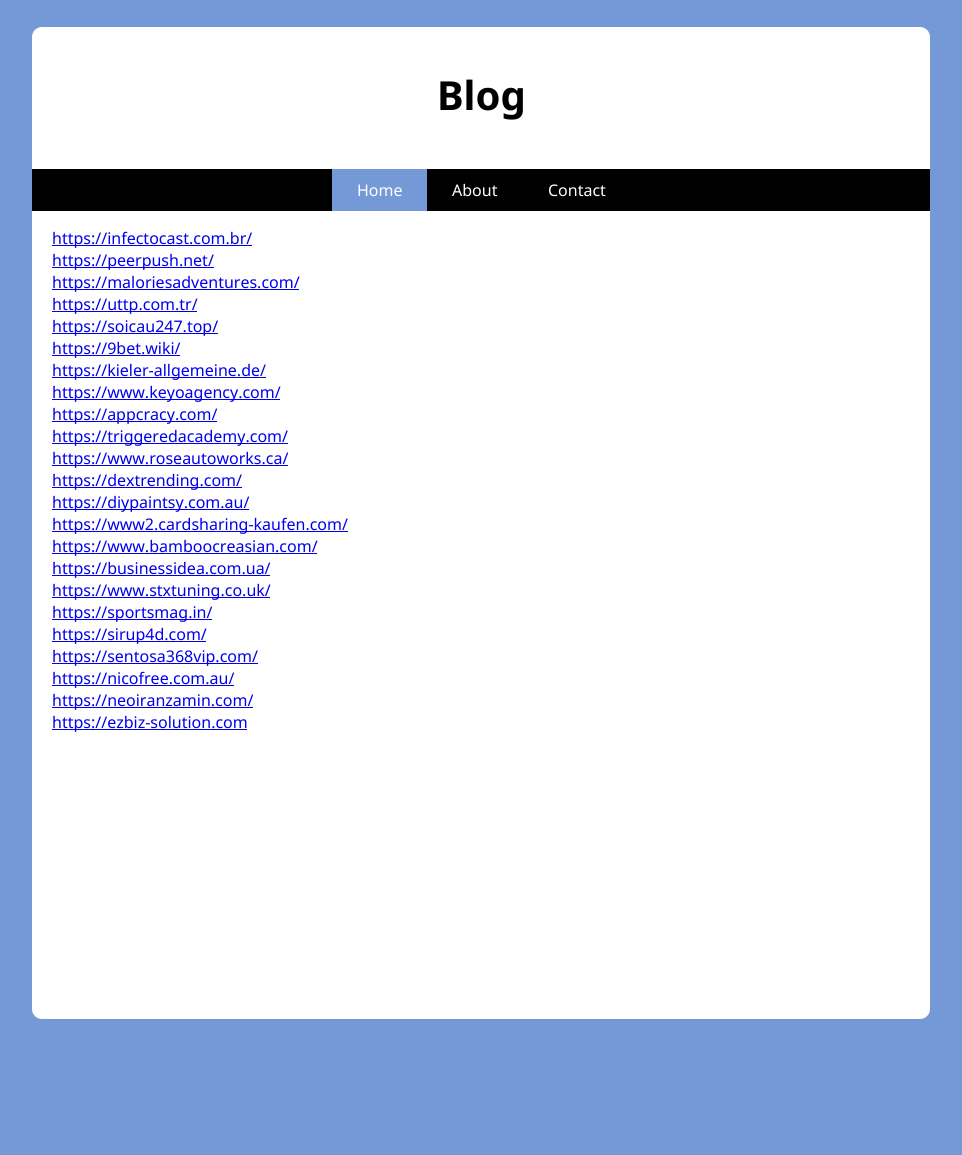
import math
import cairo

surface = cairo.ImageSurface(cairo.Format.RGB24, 962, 1155)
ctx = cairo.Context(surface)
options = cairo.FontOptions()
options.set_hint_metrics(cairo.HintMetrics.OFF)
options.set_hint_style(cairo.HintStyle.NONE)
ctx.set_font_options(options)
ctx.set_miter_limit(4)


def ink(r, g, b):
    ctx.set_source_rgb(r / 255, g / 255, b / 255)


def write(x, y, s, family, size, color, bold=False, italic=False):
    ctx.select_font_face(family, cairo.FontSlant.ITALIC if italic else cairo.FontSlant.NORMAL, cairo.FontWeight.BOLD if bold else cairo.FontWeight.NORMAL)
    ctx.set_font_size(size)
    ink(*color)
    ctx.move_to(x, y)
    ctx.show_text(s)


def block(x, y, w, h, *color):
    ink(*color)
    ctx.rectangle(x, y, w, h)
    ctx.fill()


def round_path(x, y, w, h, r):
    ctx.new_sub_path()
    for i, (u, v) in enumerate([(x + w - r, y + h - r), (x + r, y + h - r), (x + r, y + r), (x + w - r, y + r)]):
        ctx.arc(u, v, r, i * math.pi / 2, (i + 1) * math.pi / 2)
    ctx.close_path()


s1 = dict(family="Noto Sans", size=40, color=(0, 0, 0), bold=True)
s2 = dict(family="Noto Sans", size=16, color=(255, 255, 255))
s3 = dict(family="Noto Sans", size=16, color=(0, 0, 238))

ink(117, 152, 214)
ctx.paint()
ink(255, 255, 255)
round_path(32, 27, 898, 992, 10)
ctx.fill()
write(437, 110, "Blog", **s1)
block(32, 169, 898, 42, 0, 0, 0)
block(332, 169, 95, 42, 117, 152, 214)
write(357, 196, "Home", **s2)
write(452, 196, "About", **s2)
write(548, 196, "Contact", **s2)
block(52, 245, 200, 1, 0, 0, 238)
write(52, 244, "https://infectocast.com.br/", **s3)
block(52, 267, 162, 1, 0, 0, 238)
write(52, 266, "https://peerpush.net/", **s3)
block(52, 289, 247, 1, 0, 0, 238)
write(52, 288, "https://maloriesadventures.com/", **s3)
block(52, 311, 145, 1, 0, 0, 238)
write(52, 310, "https://uttp.com.tr/", **s3)
block(52, 333, 166, 1, 0, 0, 238)
write(52, 332, "https://soicau247.top/", **s3)
block(52, 355, 128, 1, 0, 0, 238)
write(52, 354, "https://9bet.wiki/", **s3)
block(52, 377, 214, 1, 0, 0, 238)
write(52, 376, "https://kieler-allgemeine.de/", **s3)
block(52, 399, 228, 1, 0, 0, 238)
write(52, 398, "https://www.keyoagency.com/", **s3)
block(52, 421, 165, 1, 0, 0, 238)
write(52, 420, "https://appcracy.com/", **s3)
block(52, 443, 236, 1, 0, 0, 238)
write(52, 442, "https://triggeredacademy.com/", **s3)
block(52, 465, 236, 1, 0, 0, 238)
write(52, 464, "https://www.roseautoworks.ca/", **s3)
block(52, 487, 190, 1, 0, 0, 238)
write(52, 486, "https://dextrending.com/", **s3)
block(52, 509, 197, 1, 0, 0, 238)
write(52, 508, "https://diypaintsy.com.au/", **s3)
block(52, 531, 296, 1, 0, 0, 238)
write(52, 530, "https://www2.cardsharing-kaufen.com/", **s3)
block(52, 553, 265, 1, 0, 0, 238)
write(52, 552, "https://www.bamboocreasian.com/", **s3)
block(52, 575, 218, 1, 0, 0, 238)
write(52, 574, "https://businessidea.com.ua/", **s3)
block(52, 597, 218, 1, 0, 0, 238)
write(52, 596, "https://www.stxtuning.co.uk/", **s3)
block(52, 619, 160, 1, 0, 0, 238)
write(52, 618, "https://sportsmag.in/", **s3)
block(52, 641, 154, 1, 0, 0, 238)
write(52, 640, "https://sirup4d.com/", **s3)
block(52, 663, 206, 1, 0, 0, 238)
write(52, 662, "https://sentosa368vip.com/", **s3)
block(52, 685, 182, 1, 0, 0, 238)
write(52, 684, "https://nicofree.com.au/", **s3)
block(52, 707, 201, 1, 0, 0, 238)
write(52, 706, "https://neoiranzamin.com/", **s3)
block(52, 729, 195, 1, 0, 0, 238)
write(52, 728, "https://ezbiz-solution.com", **s3)
surface.write_to_png("screenshot.png")
